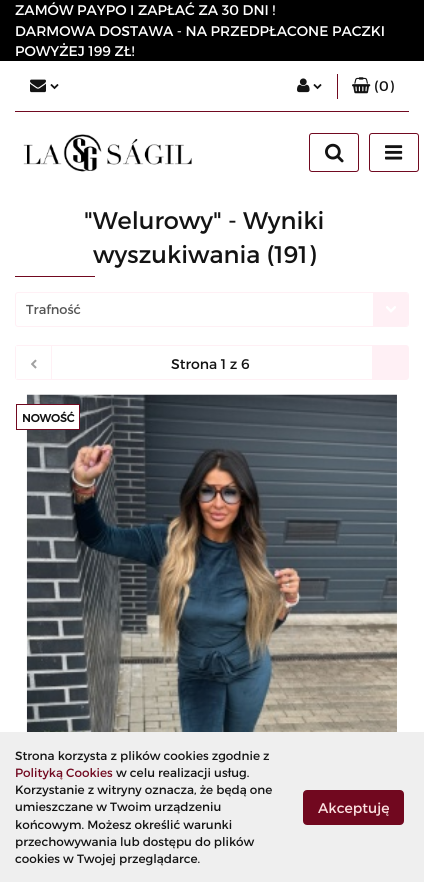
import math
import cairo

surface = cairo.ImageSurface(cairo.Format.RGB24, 424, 882)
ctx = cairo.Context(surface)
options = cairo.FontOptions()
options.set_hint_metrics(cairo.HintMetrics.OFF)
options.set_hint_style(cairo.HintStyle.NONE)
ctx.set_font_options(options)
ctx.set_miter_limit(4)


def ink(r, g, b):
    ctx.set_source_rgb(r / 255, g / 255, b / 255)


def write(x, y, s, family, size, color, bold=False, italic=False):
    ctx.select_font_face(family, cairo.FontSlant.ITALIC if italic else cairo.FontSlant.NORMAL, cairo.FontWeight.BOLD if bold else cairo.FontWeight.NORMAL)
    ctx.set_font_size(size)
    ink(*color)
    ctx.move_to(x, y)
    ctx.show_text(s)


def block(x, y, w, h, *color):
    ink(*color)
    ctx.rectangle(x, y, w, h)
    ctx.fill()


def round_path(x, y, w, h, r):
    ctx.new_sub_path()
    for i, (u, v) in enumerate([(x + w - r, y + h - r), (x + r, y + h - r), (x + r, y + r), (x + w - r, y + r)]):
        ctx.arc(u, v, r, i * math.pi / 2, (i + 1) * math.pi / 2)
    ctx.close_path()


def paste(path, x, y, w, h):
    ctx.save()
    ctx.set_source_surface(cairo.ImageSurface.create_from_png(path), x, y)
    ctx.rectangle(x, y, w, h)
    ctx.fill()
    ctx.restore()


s1 = dict(family="Montserrat", size=14, color=(255, 255, 255))
s2 = dict(family="Montserrat", size=14, color=(19, 19, 19))
s3 = dict(family="Montserrat", size=24, color=(19, 19, 19))
s4 = dict(family="Montserrat", size=13, color=(85, 85, 85))
s5 = dict(family="Montserrat", size=11, color=(19, 19, 19), bold=True)
s6 = dict(family="Montserrat", size=12, color=(19, 19, 19))
s7 = dict(family="Montserrat", size=12, color=(113, 8, 31))
s8 = dict(family="Montserrat", size=14, color=(251, 224, 224))

ink(255, 255, 255)
ctx.paint()
block(0, 0, 424, 61, 0, 0, 0)
write(15, 15, "ZAMÓW PAYPO I ZAPŁAĆ ZA 30 DNI !", **s1)
write(15, 36, "DARMOWA DOSTAWA - NA PRZEDPŁACONE PACZKI", **s1)
write(15, 56, "POWYŻEJ 199 ZŁ!", **s1)
block(15, 111, 394, 1, 113, 9, 32)
paste("pic1.png", 30, 79, 16, 14)
paste("pic2.png", 50, 84, 9, 6)
paste("pic3.png", 297, 78, 13, 15)
paste("pic2.png", 313, 84, 9, 6)
block(337, 74, 1, 25, 113, 9, 32)
paste("pic4.png", 352, 77, 19, 17)
write(374, 91, "(", **s2)
write(379, 91, "0", **s2)
write(389, 91, ")", **s2)
paste("pic5.png", 23, 134, 169, 38)
round_path(309.5, 133.5, 49, 38, 2.5)
ink(113, 9, 32)
ctx.set_line_width(1)
ctx.stroke()
paste("pic6.png", 325, 143, 19, 20)
round_path(369.5, 133.5, 49, 38, 2.5)
ctx.stroke()
paste("pic7.png", 385, 145, 18, 15)
write(84, 229, "\"Welurowy\" - Wyniki", **s3)
write(93, 263, "wyszukiwania (191)", **s3)
block(15, 276, 80, 1, 113, 8, 31)
round_path(15.5, 292.5, 393, 34, 2.5)
ink(255, 240, 245)
ctx.stroke()
write(26, 314, "Trafność", **s4)
ink(255, 240, 245)
ctx.new_path()
ctx.move_to(373, 293)
ctx.line_to(406, 293)
ctx.curve_to(407, 293, 408, 294, 408, 295)
ctx.line_to(408, 324)
ctx.curve_to(408, 325, 407, 326, 406, 326)
ctx.line_to(373, 326)
ctx.close_path()
ctx.fill()
paste("pic8.png", 386, 306, 10, 7)
round_path(15.5, 345.5, 393, 34, 2.5)
ctx.stroke()
block(51, 346, 1, 33, 255, 240, 245)
paste("pic9.png", 31, 359, 6, 10)
block(372, 346, 36, 33, 255, 240, 245)
block(16, 346, 1, 33, 255, 255, 255)
write(171, 369, "Strona 1 z 6", **s2)
paste("pic10.png", 26, 394, 371, 338)
block(26, 405, 53, 24, 255, 255, 255)
ctx.rectangle(16.5, 404.5, 63, 25)
ink(113, 9, 32)
ctx.stroke()
write(22, 422, "NOWOŚĆ", **s5)
block(0, 732, 424, 150, 239, 239, 239)
write(15, 760, "Strona korzysta z plików cookies zgodnie z", **s6)
write(15, 777, "Polityką Cookies", **s7)
write(116, 777, "w celu realizacji usług.", **s6)
write(15, 794, "Korzystanie z witryny oznacza, że będą one", **s6)
write(15, 811, "umieszczane w Twoim urządzeniu", **s6)
write(15, 829, "końcowym. Możesz określić warunki", **s6)
write(15, 846, "przechowywania lub dostępu do plików", **s6)
write(15, 863, "cookies w Twojej przeglądarce.", **s6)
ink(113, 8, 31)
round_path(304.5, 791.5, 98, 32, 2.5)
ctx.fill_preserve()
ctx.set_line_width(3)
ctx.stroke()
write(318, 813, "Akceptuję", **s8)
surface.write_to_png("screenshot.png")
